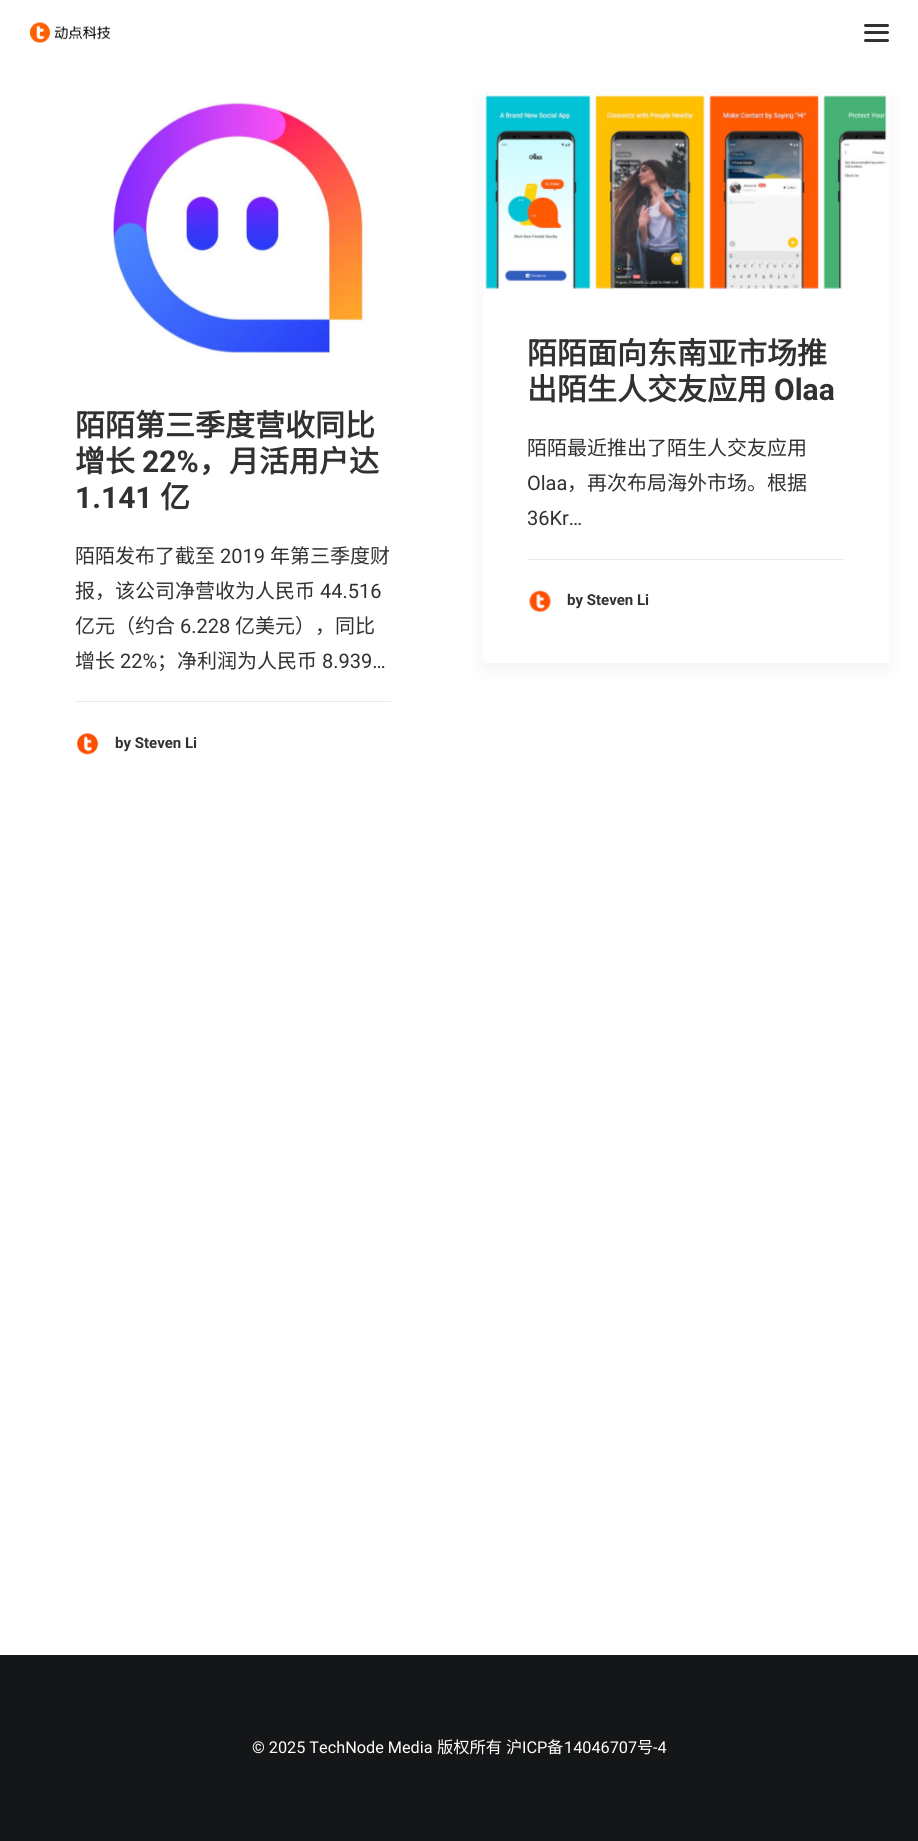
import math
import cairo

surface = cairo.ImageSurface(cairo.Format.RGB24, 918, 1841)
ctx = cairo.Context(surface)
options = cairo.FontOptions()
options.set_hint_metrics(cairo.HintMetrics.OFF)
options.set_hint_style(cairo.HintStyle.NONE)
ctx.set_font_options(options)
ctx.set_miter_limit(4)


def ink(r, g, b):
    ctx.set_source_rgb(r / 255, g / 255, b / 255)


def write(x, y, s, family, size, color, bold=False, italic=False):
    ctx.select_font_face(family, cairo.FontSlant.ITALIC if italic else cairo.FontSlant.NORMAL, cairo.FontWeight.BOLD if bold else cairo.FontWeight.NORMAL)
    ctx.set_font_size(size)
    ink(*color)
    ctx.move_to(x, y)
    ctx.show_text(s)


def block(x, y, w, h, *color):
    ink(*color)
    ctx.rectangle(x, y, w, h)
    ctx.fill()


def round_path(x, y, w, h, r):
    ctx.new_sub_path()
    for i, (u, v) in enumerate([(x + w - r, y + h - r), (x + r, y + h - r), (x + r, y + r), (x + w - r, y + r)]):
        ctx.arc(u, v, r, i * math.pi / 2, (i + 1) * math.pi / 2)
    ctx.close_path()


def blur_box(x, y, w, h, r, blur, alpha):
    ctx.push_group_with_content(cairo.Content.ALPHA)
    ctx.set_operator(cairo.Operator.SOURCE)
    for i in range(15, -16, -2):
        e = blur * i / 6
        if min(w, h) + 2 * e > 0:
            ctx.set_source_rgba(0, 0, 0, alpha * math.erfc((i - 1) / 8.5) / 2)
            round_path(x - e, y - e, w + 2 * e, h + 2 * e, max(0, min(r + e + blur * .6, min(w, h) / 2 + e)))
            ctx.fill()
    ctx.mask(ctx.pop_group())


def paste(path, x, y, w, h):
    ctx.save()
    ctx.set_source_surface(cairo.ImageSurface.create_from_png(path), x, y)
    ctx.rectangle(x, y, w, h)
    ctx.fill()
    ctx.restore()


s1 = dict(family="Noto Sans CJK SC", size=30, color=(48, 49, 51), bold=True)
s2 = dict(family="Roboto", size=30, color=(48, 49, 51), bold=True)
s3 = dict(family="Noto Sans CJK SC", size=20, color=(48, 49, 51))
s4 = dict(family="Roboto", size=20, color=(48, 49, 51))
s5 = dict(family="Roboto", size=15, color=(48, 49, 51), bold=True)
s6 = dict(family="Roboto", size=16.25, color=(255, 255, 255))
s7 = dict(family="Noto Sans CJK SC", size=16.25, color=(255, 255, 255))

ink(255, 255, 255)
ctx.paint()
paste("pic1.png", 30, 22, 80, 21)
ink(48, 49, 51)
round_path(864, 31, 25, 3, 1.5)
ctx.fill()
round_path(864, 24, 25, 3, 1.5)
ctx.fill()
round_path(864, 39, 25, 3, 1.5)
ctx.fill()
paste("pic2.png", 112, 102, 253, 251)
write(75, 436, "陌陌第三季度营收同比", **s1)
write(75, 472, "增长", **s1)
write(142, 472, "22%", **s2)
write(199, 472, "，月活用户达", **s1)
write(75, 508, "1.141", **s2)
write(160, 508, "亿", **s1)
write(75, 563, "陌陌发布了截至", **s3)
write(220, 563, "2019", **s4)
write(270, 563, "年第三季度财", **s3)
write(75, 598, "报，该公司净营收为人民币", **s3)
write(320, 598, "44.516", **s4)
write(75, 633, "亿元（约合", **s3)
write(180, 633, "6.228", **s4)
write(235, 633, "亿美元），同比", **s3)
write(75, 668, "增长", **s3)
write(120, 668, "22%", **s4)
write(157, 668, "；净利润为人民币", **s3)
write(322, 668, "8.939…", **s4)
block(75, 701, 316, 1, 234, 234, 234)
paste("pic3.png", 77, 733, 21, 22)
write(115, 748, "by Steven Li", **s5)
ink(0, 0, 0)
blur_box(483, 100, 406, 569, 0, 9.5, 0.05)
block(483, 94, 406, 569, 255, 255, 255)
paste("pic4.png", 485, 94, 402, 196)
write(527, 364, "陌陌面向东南亚市场推", **s1)
write(527, 400, "出陌生人交友应用", **s1)
write(774, 400, "Olaa", **s2)
write(527, 455, "陌陌最近推出了陌生人交友应用", **s3)
write(527, 490, "Olaa", **s4)
write(567, 490, "，再次布局海外市场。根据", **s3)
write(527, 525, "36Kr…", **s4)
block(528, 559, 316, 1, 234, 234, 234)
paste("pic5.png", 529, 590, 22, 22)
write(567, 605, "by Steven Li", **s5)
block(0, 1655, 918, 186, 20, 22, 24)
write(252, 1753, "© 2025 TechNode Media", **s6)
write(437, 1753, "版权所有", **s7)
write(506, 1753, "沪", **s7)
write(522, 1753, "ICP", **s6)
write(547, 1753, "备", **s7)
write(564, 1753, "14046707", **s6)
write(637, 1753, "号", **s7)
write(653, 1753, "-4", **s6)
surface.write_to_png("screenshot.png")
